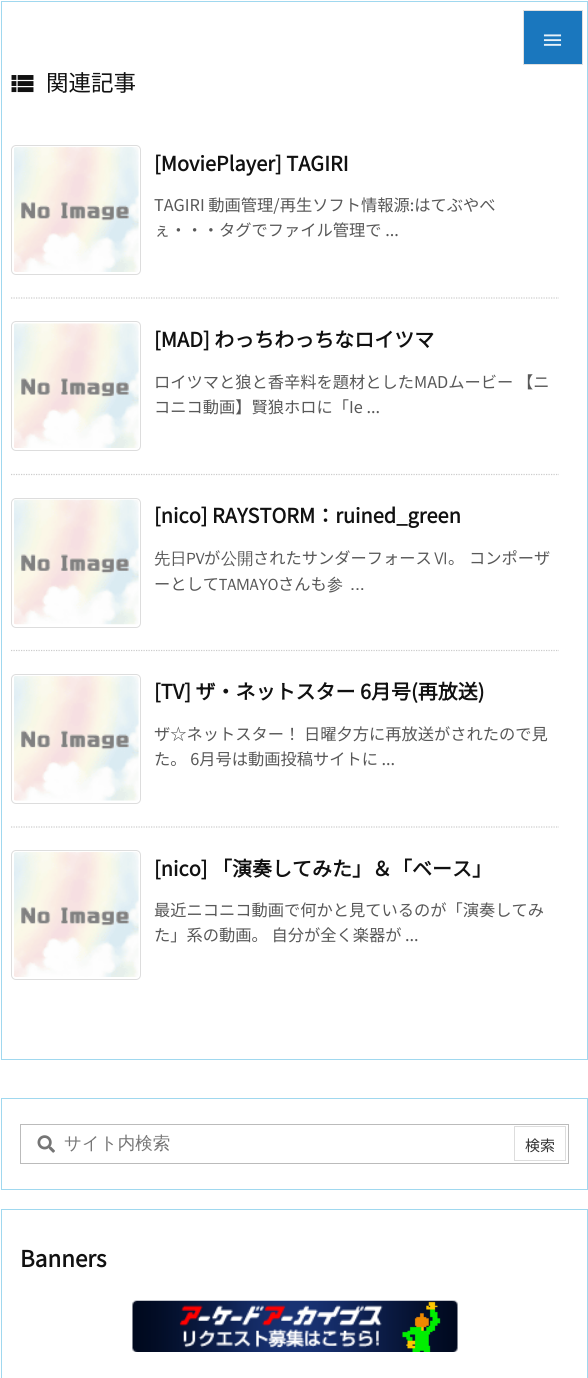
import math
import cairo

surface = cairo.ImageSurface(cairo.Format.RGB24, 588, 1378)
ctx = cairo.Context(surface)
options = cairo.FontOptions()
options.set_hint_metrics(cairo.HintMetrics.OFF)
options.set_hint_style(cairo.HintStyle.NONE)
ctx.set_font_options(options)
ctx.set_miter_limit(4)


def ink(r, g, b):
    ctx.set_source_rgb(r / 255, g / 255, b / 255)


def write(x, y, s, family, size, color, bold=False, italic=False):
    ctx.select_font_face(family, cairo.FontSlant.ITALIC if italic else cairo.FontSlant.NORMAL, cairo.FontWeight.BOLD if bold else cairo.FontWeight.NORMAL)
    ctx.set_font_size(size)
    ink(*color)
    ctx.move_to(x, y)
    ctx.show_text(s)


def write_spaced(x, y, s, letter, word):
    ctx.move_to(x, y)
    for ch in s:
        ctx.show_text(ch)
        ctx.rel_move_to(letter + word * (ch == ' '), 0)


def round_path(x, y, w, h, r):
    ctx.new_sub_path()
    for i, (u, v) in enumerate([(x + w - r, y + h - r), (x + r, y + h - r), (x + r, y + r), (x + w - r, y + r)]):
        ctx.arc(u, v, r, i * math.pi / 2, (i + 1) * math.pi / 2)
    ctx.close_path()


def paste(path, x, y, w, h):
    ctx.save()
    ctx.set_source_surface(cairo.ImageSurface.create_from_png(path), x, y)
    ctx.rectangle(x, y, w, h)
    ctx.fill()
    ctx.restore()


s1 = dict(family="Noto Sans JP Thin", size=22.5, color=(17, 17, 17))
s2 = dict(family="Noto Sans JP", size=20, color=(17, 17, 17), bold=True)
s3 = dict(family="Noto Sans JP Thin", size=16.25, color=(88, 88, 88))
s4 = dict(family="WenQuanYi Zen Hei Medium", size=16.25, color=(88, 88, 88))
s5 = dict(family="WenQuanYi Zen Hei Medium", size=17.5, color=(117, 117, 117))
s6 = dict(family="Noto Sans JP Thin", size=15, color=(51, 51, 51))
s7 = dict(family="Noto Sans JP", size=22.5, color=(17, 17, 17), bold=True)

ink(255, 255, 255)
ctx.paint()
ctx.rectangle(1.5, 1.5, 586, 1058)
ink(160, 216, 239)
ctx.set_line_width(1)
ctx.stroke()
ink(26, 119, 190)
ctx.rectangle(523.5, 10.5, 59, 54)
ctx.fill_preserve()
ink(224, 224, 224)
ctx.stroke()
paste("pic1.png", 543, 34, 19, 12)
paste("pic2.png", 11, 75, 23, 18)
write(46, 91, "関連記事", **s1)
round_path(11.5, 145.5, 129, 129, 4.5)
ink(221, 221, 221)
ctx.stroke()
paste("pic3.png", 14, 147, 125, 125)
write(154, 171, "[MoviePlayer] TAGIRI", **s2)
write(154, 211, "TAGIRI 動画管理/再生ソフト情報源:はてぶやべ", **s3)
write(154, 236, "ぇ・・・タグでファイル管理で ...", **s3)
ctx.new_path()
ctx.move_to(11, 298)
ctx.line_to(559, 298)
ink(204, 204, 204)
ctx.set_line_width(1.2)
ctx.set_dash([1.25, 1.25])
ctx.stroke()
round_path(11.5, 321.5, 129, 129, 4.5)
ink(221, 221, 221)
ctx.set_line_width(1)
ctx.set_dash([])
ctx.stroke()
paste("pic4.png", 14, 323, 125, 125)
write(154, 347, "[MAD] わっちわっちなロイツマ", **s2)
write(154, 388, "ロイツマと狼と香辛料を題材としたMADムービー 【ニ", **s3)
write(154, 413, "コニコ動画】賢狼ホロに「Ie ...", **s3)
ctx.new_path()
ctx.move_to(11, 474.5)
ctx.line_to(559, 474.5)
ink(204, 204, 204)
ctx.set_line_width(1.2)
ctx.set_dash([1.25, 1.25])
ctx.stroke()
round_path(11.5, 498.5, 129, 129, 4.5)
ink(221, 221, 221)
ctx.set_line_width(1)
ctx.set_dash([])
ctx.stroke()
paste("pic5.png", 14, 499, 125, 126)
write(154, 523, "[nico] RAYSTORM：ruined_green", **s2)
write(154, 564, "先日PV", **s4)
write(204, 564, "が", **s3)
write(221, 564, "公開", **s4)
write(253, 564, "されたサンダーフォース", **s3)
write(432, 564, "Ⅵ", **s4)
ctx.select_font_face("Noto Sans JP Thin")
write_spaced(448, 564, "。 コンポーザ", 0, 1)
write(154, 590, "ーとして", **s3)
write(219, 590, "TAMAYO", **s4)
write(278, 590, "さんも", **s3)
ctx.select_font_face("WenQuanYi Zen Hei Medium")
write_spaced(327, 590, "参 ...", 0, 2)
ctx.new_path()
ctx.move_to(11, 650.5)
ctx.line_to(559, 650.5)
ink(204, 204, 204)
ctx.set_line_width(1.2)
ctx.set_dash([1.25, 1.25])
ctx.stroke()
round_path(11.5, 674.5, 129, 129, 4.5)
ink(221, 221, 221)
ctx.set_line_width(1)
ctx.set_dash([])
ctx.stroke()
paste("pic6.png", 14, 676, 125, 125)
write(154, 699, "[TV] ザ・ネットスター 6月号(再放送)", **s2)
write(154, 740, "ザ☆ネットスター！ 日曜夕方に再放送がされたので見", **s3)
write(154, 765, "た。 6月号は動画投稿サイトに ...", **s3)
ctx.new_path()
ctx.move_to(11, 827)
ctx.line_to(559, 827)
ink(204, 204, 204)
ctx.set_line_width(1.2)
ctx.set_dash([1.25, 1.25])
ctx.stroke()
round_path(11.5, 850.5, 129, 129, 4.5)
ink(221, 221, 221)
ctx.set_line_width(1)
ctx.set_dash([])
ctx.stroke()
paste("pic7.png", 14, 852, 125, 125)
write(154, 876, "[nico] 「演奏してみた」＆「ベース」", **s2)
write(154, 916, "最近ニコニコ動画で何かと見ているのが「演奏してみ", **s3)
write(154, 941, "た」系の動画。 自分が全く楽器が ...", **s3)
ctx.rectangle(1.5, 1098.5, 586, 91)
ink(160, 216, 239)
ctx.stroke()
ctx.rectangle(20.5, 1124.5, 548, 39)
ink(187, 187, 187)
ctx.stroke()
paste("pic8.png", 37, 1135, 18, 18)
write(64, 1149, "サイト内検索", **s5)
ctx.rectangle(514.5, 1126.5, 51, 34)
ink(221, 221, 221)
ctx.stroke()
write(525, 1151, "検索", **s6)
ctx.rectangle(1.5, 1209.5, 586, 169)
ink(160, 216, 239)
ctx.stroke()
write(20, 1267, "Banners", **s7)
paste("pic9.png", 132, 1300, 326, 52)
surface.write_to_png("screenshot.png")
